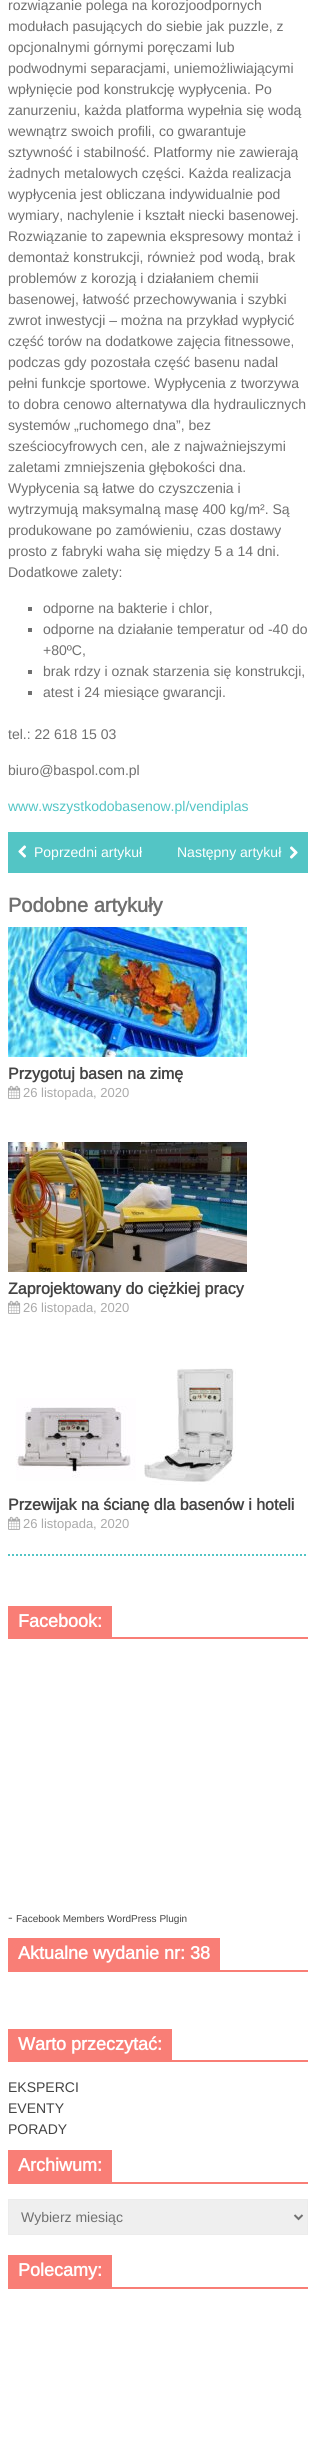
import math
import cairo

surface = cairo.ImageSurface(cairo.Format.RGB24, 315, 2447)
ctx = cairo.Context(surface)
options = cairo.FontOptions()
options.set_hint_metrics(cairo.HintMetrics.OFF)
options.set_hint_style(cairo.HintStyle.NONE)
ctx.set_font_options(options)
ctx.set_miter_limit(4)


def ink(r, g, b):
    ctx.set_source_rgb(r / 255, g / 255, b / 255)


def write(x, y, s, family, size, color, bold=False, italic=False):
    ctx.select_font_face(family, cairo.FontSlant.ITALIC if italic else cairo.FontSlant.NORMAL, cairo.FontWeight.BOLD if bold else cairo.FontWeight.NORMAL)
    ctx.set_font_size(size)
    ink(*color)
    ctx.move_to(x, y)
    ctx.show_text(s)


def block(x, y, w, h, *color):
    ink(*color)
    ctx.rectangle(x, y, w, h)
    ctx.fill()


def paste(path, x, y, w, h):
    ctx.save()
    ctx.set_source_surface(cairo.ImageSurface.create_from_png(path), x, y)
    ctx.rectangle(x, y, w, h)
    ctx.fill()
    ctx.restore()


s1 = dict(family="Arimo", size=14, color=(112, 112, 112))
s2 = dict(family="Arimo", size=14, color=(83, 197, 197))
s3 = dict(family="Arimo", size=14, color=(255, 255, 255))
s4 = dict(family="Arimo", size=20, color=(112, 112, 112), bold=True)
s5 = dict(family="Arimo", size=16, color=(68, 68, 68), bold=True)
s6 = dict(family="Arimo", size=13, color=(170, 170, 170))
s7 = dict(family="Arimo", size=18, color=(255, 255, 255), bold=True)
s8 = dict(family="Arimo", size=10, color=(68, 68, 68))
s9 = dict(family="Arimo", size=14, color=(68, 68, 68))

ink(255, 255, 255)
ctx.paint()
ctx.new_path()
ctx.move_to(8, 1555)
ctx.line_to(308, 1555)
ink(83, 197, 197)
ctx.set_dash([2, 2])
ctx.stroke()
write(8, 10, "rozwiązanie polega na korozjoodpornych", **s1)
write(8, 31, "modułach pasujących do siebie jak puzzle, z", **s1)
write(8, 52, "opcjonalnymi górnymi poręczami lub", **s1)
write(8, 73, "podwodnymi separacjami, uniemożliwiającymi", **s1)
write(8, 94, "wpłynięcie pod konstrukcję wypłycenia. Po", **s1)
write(8, 115, "zanurzeniu, każda platforma wypełnia się wodą", **s1)
write(8, 136, "wewnątrz swoich profili, co gwarantuje", **s1)
write(8, 157, "sztywność i stabilność. Platformy nie zawierają", **s1)
write(8, 178, "żadnych metalowych części. Każda realizacja", **s1)
write(8, 199, "wypłycenia jest obliczana indywidualnie pod", **s1)
write(8, 220, "wymiary, nachylenie i kształt niecki basenowej.", **s1)
write(8, 241, "Rozwiązanie to zapewnia ekspresowy montaż i", **s1)
write(8, 262, "demontaż konstrukcji, również pod wodą, brak", **s1)
write(8, 283, "problemów z korozją i działaniem chemii", **s1)
write(8, 304, "basenowej, łatwość przechowywania i szybki", **s1)
write(8, 325, "zwrot inwestycji – można na przykład wypłycić", **s1)
write(8, 346, "część torów na dodatkowe zajęcia fitnessowe,", **s1)
write(8, 367, "podczas gdy pozostała część basenu nadal", **s1)
write(8, 388, "pełni funkcje sportowe. Wypłycenia z tworzywa", **s1)
write(8, 409, "to dobra cenowo alternatywa dla hydraulicznych", **s1)
write(8, 430, "systemów „ruchomego dna”, bez", **s1)
write(8, 451, "sześciocyfrowych cen, ale z najważniejszymi", **s1)
write(8, 472, "zaletami zmniejszenia głębokości dna.", **s1)
write(8, 493, "Wypłycenia są łatwe do czyszczenia i", **s1)
write(8, 514, "wytrzymują maksymalną masę 400 kg/m². Są", **s1)
write(8, 535, "produkowane po zamówieniu, czas dostawy", **s1)
write(8, 556, "prosto z fabryki waha się między 5 a 14 dni.", **s1)
write(8, 577, "Dodatkowe zalety:", **s1)
block(28, 607, 4, 4, 112, 112, 112)
write(43, 613, "odporne na bakterie i chlor,", **s1)
block(28, 628, 4, 4, 112, 112, 112)
write(43, 634, "odporne na działanie temperatur od -40 do", **s1)
write(43, 655, "+80ºC,", **s1)
block(28, 670, 4, 4, 112, 112, 112)
write(43, 676, "brak rdzy i oznak starzenia się konstrukcji,", **s1)
block(28, 691, 4, 4, 112, 112, 112)
write(43, 697, "atest i 24 miesiące gwarancji.", **s1)
write(8, 739, "tel.: 22 618 15 03", **s1)
write(8, 775, "biuro@baspol.com.pl", **s1)
write(8, 811, "www.wszystkodobasenow.pl/vendiplas", **s2)
block(8, 832, 300, 41, 83, 197, 197)
paste("pic1.png", 18, 845, 8, 13)
write(34, 857, "Poprzedni artykuł", **s3)
write(177, 857, "Następny artykuł", **s3)
paste("pic2.png", 290, 846, 8, 13)
write(8, 912, "Podobne artykuły", **s4)
paste("pic3.png", 8, 927, 239, 130)
write(8, 1079, "Przygotuj basen na zimę", **s5)
paste("pic4.png", 8, 1085, 13, 14)
write(23, 1097, "26 listopada, 2020", **s6)
paste("pic5.png", 8, 1142, 239, 130)
write(8, 1294, "Zaprojektowany do ciężkiej pracy", **s5)
paste("pic4.png", 8, 1300, 13, 14)
write(23, 1312, "26 listopada, 2020", **s6)
paste("pic6.png", 16, 1368, 220, 117)
write(8, 1510, "Przewijak na ścianę dla basenów i hoteli", **s5)
paste("pic4.png", 8, 1516, 13, 14)
write(23, 1528, "26 listopada, 2020", **s6)
block(8, 1637, 300, 2, 249, 126, 118)
block(8, 1606, 104, 31, 249, 126, 118)
write(18, 1627, "Facebook:", **s7)
write(8, 1922, "-", **s1)
write(16, 1922, "Facebook Members WordPress Plugin", **s8)
block(8, 1970, 300, 2, 249, 126, 118)
block(8, 1938, 212, 32, 249, 126, 118)
write(18, 1959, "Aktualne wydanie nr: 38", **s7)
block(8, 2060, 300, 2, 249, 126, 118)
block(8, 2029, 164, 31, 249, 126, 118)
write(18, 2050, "Warto przeczytać:", **s7)
write(8, 2092, "EKSPERCI", **s9)
write(8, 2113, "EVENTY", **s9)
write(8, 2134, "PORADY", **s9)
block(8, 2182, 300, 2, 249, 126, 118)
block(8, 2150, 104, 32, 249, 126, 118)
write(18, 2171, "Archiwum:", **s7)
ink(239, 239, 239)
ctx.rectangle(8.5, 2199.5, 299, 35)
ctx.fill_preserve()
ink(236, 236, 236)
ctx.set_line_width(1)
ctx.set_dash([])
ctx.stroke()
ctx.new_path()
ctx.move_to(294.5, 2215)
ctx.line_to(298.5, 2219)
ctx.line_to(302.5, 2215)
ink(112, 112, 112)
ctx.set_line_width(2)
ctx.stroke()
write(21, 2222, "Wybierz miesiąc", **s1)
block(8, 2287, 300, 2, 249, 126, 118)
block(8, 2255, 104, 32, 249, 126, 118)
write(18, 2276, "Polecamy:", **s7)
surface.write_to_png("screenshot.png")
